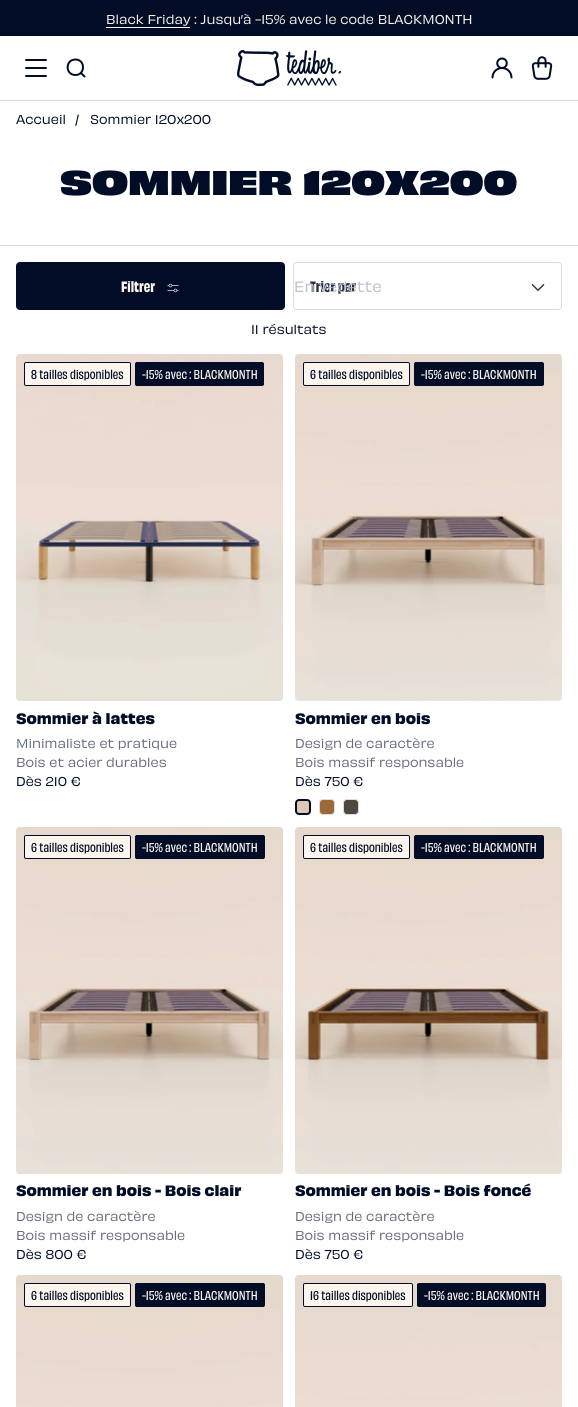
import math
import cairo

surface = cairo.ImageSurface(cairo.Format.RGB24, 578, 1407)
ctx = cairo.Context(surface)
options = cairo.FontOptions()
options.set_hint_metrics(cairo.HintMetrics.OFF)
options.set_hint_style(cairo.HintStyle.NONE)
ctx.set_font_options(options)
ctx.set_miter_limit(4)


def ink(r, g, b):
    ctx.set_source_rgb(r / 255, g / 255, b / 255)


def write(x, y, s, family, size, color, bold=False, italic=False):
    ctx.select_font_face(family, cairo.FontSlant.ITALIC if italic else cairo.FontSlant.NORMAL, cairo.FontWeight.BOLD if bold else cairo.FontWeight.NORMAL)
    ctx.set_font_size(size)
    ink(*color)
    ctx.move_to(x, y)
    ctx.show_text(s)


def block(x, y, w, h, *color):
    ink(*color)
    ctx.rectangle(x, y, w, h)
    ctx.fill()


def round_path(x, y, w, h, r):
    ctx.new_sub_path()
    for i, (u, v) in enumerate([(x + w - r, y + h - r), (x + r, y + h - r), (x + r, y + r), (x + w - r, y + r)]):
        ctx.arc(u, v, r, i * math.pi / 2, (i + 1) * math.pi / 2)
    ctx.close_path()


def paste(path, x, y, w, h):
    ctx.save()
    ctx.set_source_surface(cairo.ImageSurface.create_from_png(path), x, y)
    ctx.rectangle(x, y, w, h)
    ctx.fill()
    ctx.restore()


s1 = dict(family="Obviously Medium", size=12, color=(251, 245, 237))
s2 = dict(family="Obviously Medium", size=12, color=(1, 12, 39))
s3 = dict(family="Obviously", size=32, color=(1, 12, 39), bold=True)
s4 = dict(family="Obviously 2", size=14, color=(251, 245, 237), bold=True)
s5 = dict(family="Obviously 2", size=14, color=(39, 48, 71), bold=True)
s6 = dict(family="Obviously Medium", size=14, color=(189, 192, 199))
s7 = dict(family="Obviously", size=12, color=(1, 12, 39))
s8 = dict(family="Obviously", size=12, color=(251, 245, 237))
s9 = dict(family="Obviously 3", size=14, color=(1, 12, 39), bold=True)
s10 = dict(family="Obviously Medium", size=12, color=(103, 109, 125))

ink(255, 255, 255)
ctx.paint()
block(0, 0, 578, 36, 1, 12, 39)
write(106, 24, "Black Friday : Jusqu’à -15% avec le code BLACKMONTH", **s1)
block(106, 27, 84, 1, 251, 245, 237)
block(0, 100, 578, 1, 214, 216, 220)
ctx.new_path()
ctx.move_to(26, 60)
ctx.line_to(46, 60)
ctx.move_to(26, 68)
ctx.line_to(46, 68)
ctx.move_to(26, 76)
ctx.line_to(46, 76)
ink(1, 12, 39)
ctx.set_line_cap(cairo.LineCap.ROUND)
ctx.stroke()
ctx.new_path()
ctx.move_to(75.5, 75)
ctx.curve_to(85.5, 75, 85.5, 59.5, 75.5, 59.5)
ctx.curve_to(65, 59.5, 65, 75, 75.5, 75)
ctx.close_path()
ctx.set_line_cap(cairo.LineCap.BUTT)
ctx.stroke()
ctx.new_path()
ctx.move_to(81, 73)
ctx.line_to(84.5, 76.5)
ctx.set_line_cap(cairo.LineCap.ROUND)
ctx.stroke()
paste("pic1.png", 237, 50, 104, 36)
paste("pic2.png", 491, 57, 22, 22)
paste("pic3.png", 531, 56, 22, 24)
block(0, 245, 578, 1, 221, 221, 221)
write(16, 124, "Accueil", **s2)
write(75, 124, "/", **s2)
write(90, 124, "Sommier 120x200", **s2)
write(60, 195, "SOMMIER 120X200", **s3)
round_path(16.5, 262.5, 268, 47, 3.5)
ctx.fill_preserve()
ctx.set_line_width(1)
ctx.set_line_cap(cairo.LineCap.BUTT)
ctx.stroke()
write(121, 292, "Filtrer", **s4)
paste("pic4.png", 167, 283, 12, 10)
round_path(293.5, 262.5, 268, 47, 3.5)
ink(221, 221, 221)
ctx.stroke()
write(310, 292, "Trier par", **s5)
write(294, 292, "En vedette", **s6)
paste("pic5.png", 531, 284, 14, 7)
write(251, 334, "11 résultats", **s2)
paste("pic6.png", 16, 354, 267, 347)
ink(251, 245, 237)
round_path(24.5, 362.5, 106, 23, 1.5)
ctx.fill_preserve()
ink(1, 12, 39)
ctx.stroke()
write(31, 379, "8 tailles disponibles", **s7)
round_path(135.5, 362.5, 128, 23, 1.5)
ctx.fill_preserve()
ctx.stroke()
write(142, 379, "-15% avec : BLACKMONTH", **s8)
write(16, 724, "Sommier à lattes", **s9)
write(16, 748, "Minimaliste et pratique", **s10)
write(16, 767, "Bois et acier durables", **s10)
write(16, 786, "Dès 210 €", **s2)
paste("pic7.png", 295, 354, 267, 347)
ink(251, 245, 237)
round_path(303.5, 362.5, 106, 23, 1.5)
ctx.fill_preserve()
ink(1, 12, 39)
ctx.stroke()
write(310, 379, "6 tailles disponibles", **s7)
round_path(414.5, 362.5, 129, 23, 1.5)
ctx.fill_preserve()
ctx.stroke()
write(421, 379, "-15% avec : BLACKMONTH", **s8)
write(295, 724, "Sommier en bois", **s9)
write(295, 748, "Design de caractère", **s10)
write(295, 767, "Bois massif responsable", **s10)
write(295, 786, "Dès 750 €", **s2)
ink(220, 200, 181)
round_path(296, 800, 14, 14, 3)
ctx.fill_preserve()
ink(1, 12, 39)
ctx.set_line_width(2)
ctx.stroke()
ink(155, 104, 57)
round_path(319.5, 799.5, 15, 15, 3.5)
ctx.fill_preserve()
ink(221, 221, 221)
ctx.set_line_width(1)
ctx.stroke()
ink(79, 70, 62)
round_path(343.5, 799.5, 15, 15, 3.5)
ctx.fill_preserve()
ink(221, 221, 221)
ctx.stroke()
paste("pic8.png", 16, 827, 267, 347)
ink(251, 245, 237)
round_path(24.5, 835.5, 106, 23, 1.5)
ctx.fill_preserve()
ink(1, 12, 39)
ctx.stroke()
write(31, 852, "6 tailles disponibles", **s7)
round_path(135.5, 835.5, 129, 23, 1.5)
ctx.fill_preserve()
ctx.stroke()
write(142, 852, "-15% avec : BLACKMONTH", **s8)
write(16, 1196, "Sommier en bois - Bois clair", **s9)
write(16, 1221, "Design de caractère", **s10)
write(16, 1240, "Bois massif responsable", **s10)
write(16, 1259, "Dès 800 €", **s2)
paste("pic9.png", 295, 827, 267, 347)
ink(251, 245, 237)
round_path(303.5, 835.5, 106, 23, 1.5)
ctx.fill_preserve()
ink(1, 12, 39)
ctx.stroke()
write(310, 852, "6 tailles disponibles", **s7)
round_path(414.5, 835.5, 129, 23, 1.5)
ctx.fill_preserve()
ctx.stroke()
write(421, 852, "-15% avec : BLACKMONTH", **s8)
write(295, 1196, "Sommier en bois - Bois foncé", **s9)
write(295, 1221, "Design de caractère", **s10)
write(295, 1240, "Bois massif responsable", **s10)
write(295, 1259, "Dès 750 €", **s2)
paste("pic10.png", 16, 1275, 267, 132)
ink(251, 245, 237)
round_path(24.5, 1283.5, 106, 23, 1.5)
ctx.fill_preserve()
ink(1, 12, 39)
ctx.stroke()
write(31, 1300, "6 tailles disponibles", **s7)
round_path(135.5, 1283.5, 129, 23, 1.5)
ctx.fill_preserve()
ctx.stroke()
write(142, 1300, "-15% avec : BLACKMONTH", **s8)
paste("pic11.png", 295, 1275, 267, 132)
round_path(303.5, 1283.5, 109, 23, 1.5)
ctx.fill_preserve()
ink(1, 12, 39)
ctx.stroke()
write(310, 1300, "16 tailles disponibles", **s7)
round_path(417.5, 1283.5, 128, 23, 1.5)
ctx.fill_preserve()
ctx.stroke()
write(424, 1300, "-15% avec : BLACKMONTH", **s8)
surface.write_to_png("screenshot.png")
